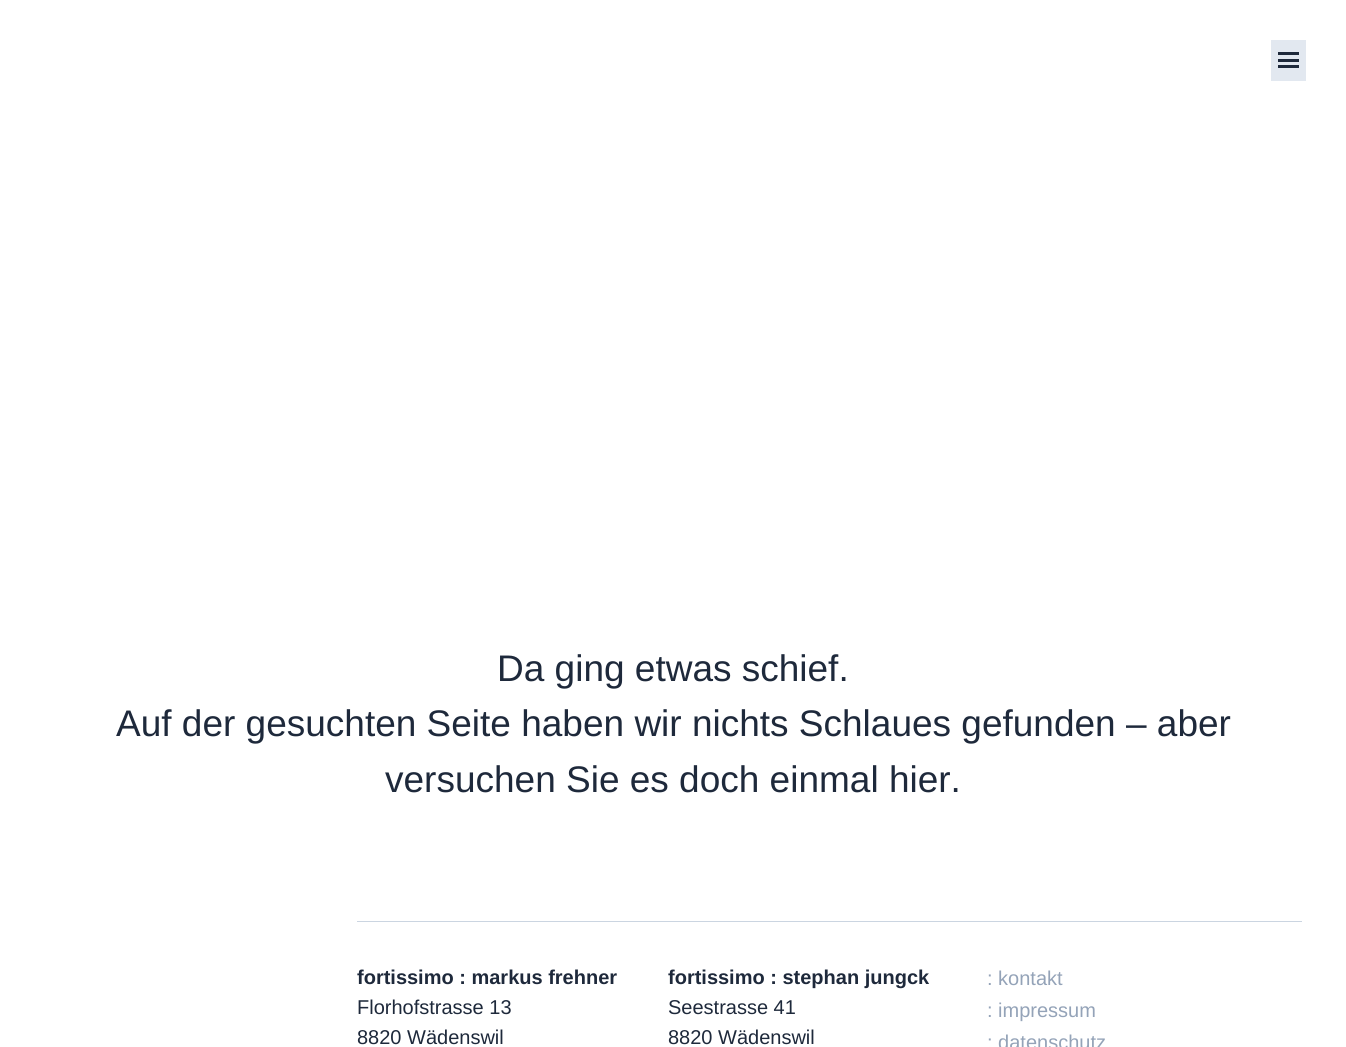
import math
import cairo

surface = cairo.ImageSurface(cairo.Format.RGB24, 1346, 1047)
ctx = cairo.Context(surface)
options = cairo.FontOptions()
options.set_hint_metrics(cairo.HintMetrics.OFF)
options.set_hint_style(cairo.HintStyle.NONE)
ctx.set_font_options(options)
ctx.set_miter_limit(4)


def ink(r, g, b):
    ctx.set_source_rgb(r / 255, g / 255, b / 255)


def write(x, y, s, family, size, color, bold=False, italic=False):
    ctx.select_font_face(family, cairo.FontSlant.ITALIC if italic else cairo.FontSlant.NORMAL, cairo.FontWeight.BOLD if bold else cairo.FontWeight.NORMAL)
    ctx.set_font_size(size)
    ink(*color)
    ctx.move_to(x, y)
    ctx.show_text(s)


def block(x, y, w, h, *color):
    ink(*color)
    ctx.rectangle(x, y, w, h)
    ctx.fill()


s1 = dict(family="Liberation Sans", size=37, color=(30, 41, 59))
s2 = dict(family="Liberation Sans", size=20, color=(30, 41, 59), bold=True)
s3 = dict(family="Liberation Sans", size=20, color=(30, 41, 59))
s4 = dict(family="Liberation Sans", size=20, color=(148, 163, 184))

ink(255, 255, 255)
ctx.paint()
block(1271, 40, 35, 41, 226, 232, 240)
block(1278, 52, 21, 3, 30, 41, 59)
block(1278, 59, 21, 3, 30, 41, 59)
block(1278, 65, 21, 3, 30, 41, 59)
write(497, 681, "Da ging etwas schief.", **s1)
write(116, 736, "Auf der gesuchten Seite haben wir nichts Schlaues gefunden – aber", **s1)
write(385, 792, "versuchen Sie es doch einmal hier.", **s1)
block(357, 921, 945, 1, 203, 213, 225)
write(357, 984, "fortissimo : markus frehner", **s2)
write(357, 1014, "Florhofstrasse 13", **s3)
write(357, 1044, "8820 Wädenswil", **s3)
write(668, 984, "fortissimo : stephan jungck", **s2)
write(668, 1014, "Seestrasse 41", **s3)
write(668, 1044, "8820 Wädenswil", **s3)
write(987, 985, ": kontakt", **s4)
write(987, 1017, ": impressum", **s4)
write(987, 1049, ": datenschutz", **s4)
surface.write_to_png("screenshot.png")
